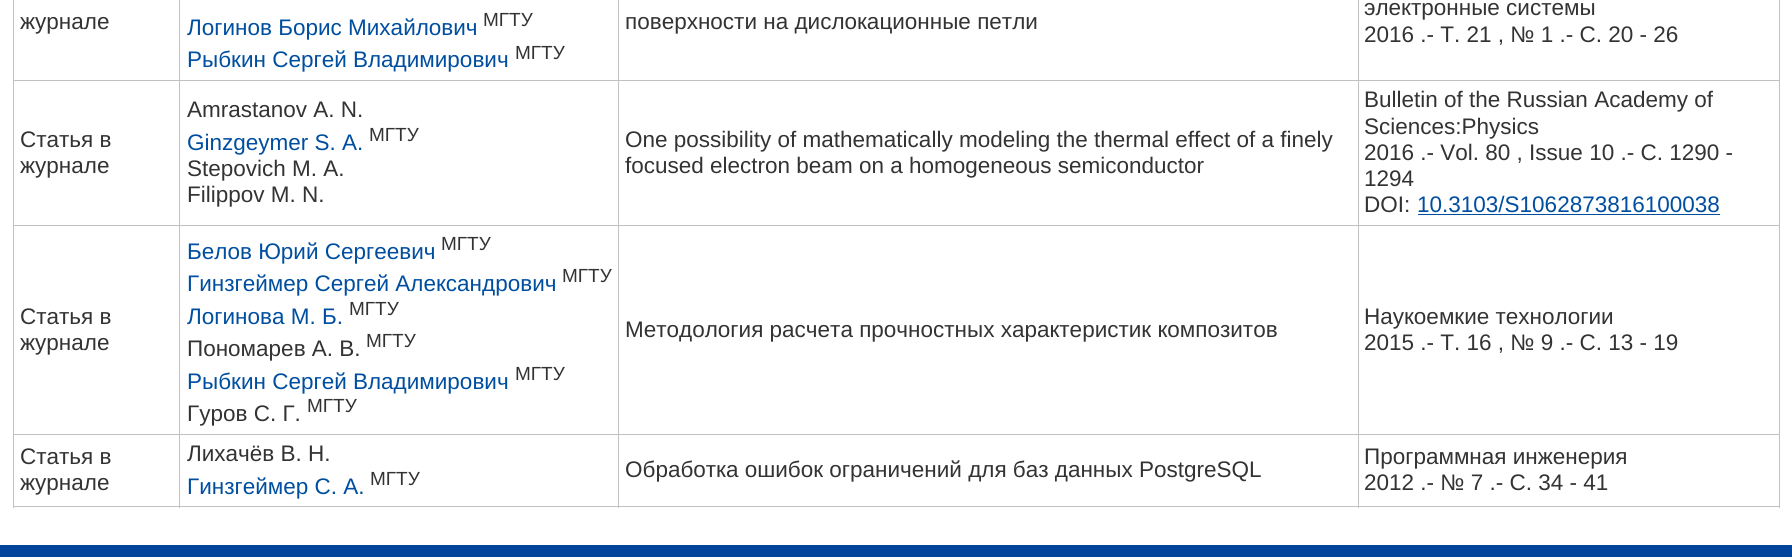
import math
import cairo

surface = cairo.ImageSurface(cairo.Format.RGB24, 1792, 557)
ctx = cairo.Context(surface)
options = cairo.FontOptions()
options.set_hint_metrics(cairo.HintMetrics.OFF)
options.set_hint_style(cairo.HintStyle.NONE)
ctx.set_font_options(options)
ctx.set_miter_limit(4)


def ink(r, g, b):
    ctx.set_source_rgb(r / 255, g / 255, b / 255)


def write(x, y, s, family, size, color, bold=False, italic=False):
    ctx.select_font_face(family, cairo.FontSlant.ITALIC if italic else cairo.FontSlant.NORMAL, cairo.FontWeight.BOLD if bold else cairo.FontWeight.NORMAL)
    ctx.set_font_size(size)
    ink(*color)
    ctx.move_to(x, y)
    ctx.show_text(s)


def block(x, y, w, h, *color):
    ink(*color)
    ctx.rectangle(x, y, w, h)
    ctx.fill()


s1 = dict(family="Liberation Sans", size=22.5, color=(51, 51, 51))
s2 = dict(family="Liberation Sans", size=22.5, color=(0, 78, 159))
s3 = dict(family="Liberation Sans", size=19, color=(51, 51, 51))

ink(255, 255, 255)
ctx.paint()
write(20, 29, "журнале", **s1)
block(1358, 80, 422, 1, 193, 193, 193)
block(1358, 225, 422, 1, 193, 193, 193)
block(1358, 434, 422, 1, 193, 193, 193)
block(1779, 434, 1, 74, 193, 193, 193)
block(1358, 506, 422, 1, 193, 193, 193)
block(1358, 434, 1, 74, 193, 193, 193)
block(618, 434, 741, 1, 193, 193, 193)
block(1358, 225, 1, 210, 193, 193, 193)
block(618, 225, 741, 1, 193, 193, 193)
block(1358, 80, 1, 146, 193, 193, 193)
block(618, 80, 741, 1, 193, 193, 193)
block(618, 506, 741, 1, 193, 193, 193)
block(618, 434, 1, 74, 193, 193, 193)
block(179, 434, 440, 1, 193, 193, 193)
block(618, 225, 1, 210, 193, 193, 193)
block(179, 225, 440, 1, 193, 193, 193)
block(618, 80, 1, 146, 193, 193, 193)
block(179, 80, 440, 1, 193, 193, 193)
block(179, 506, 440, 1, 193, 193, 193)
block(179, 434, 1, 74, 193, 193, 193)
block(13, 434, 167, 1, 193, 193, 193)
block(179, 225, 1, 210, 193, 193, 193)
block(13, 225, 167, 1, 193, 193, 193)
block(179, 80, 1, 146, 193, 193, 193)
block(13, 80, 167, 1, 193, 193, 193)
block(179, 0, 1, 81, 193, 193, 193)
write(187, 35, "Логинов Борис Михайлович", **s2)
write(483, 26, "МГТУ", **s3)
write(187, 67, "Рыбкин Сергей Владимирович", **s2)
write(515, 59, "МГТУ", **s3)
block(618, 0, 1, 81, 193, 193, 193)
write(625, 29, "поверхности на дислокационные петли", **s1)
block(1358, 0, 1, 81, 193, 193, 193)
write(1364, 15, "электронные системы", **s1)
write(1364, 42, "2016 .- Т. 21 , № 1 .- С. 20 - 26", **s1)
block(13, 506, 167, 1, 193, 193, 193)
block(13, 434, 1, 74, 193, 193, 193)
block(13, 225, 1, 210, 193, 193, 193)
block(13, 0, 1, 226, 193, 193, 193)
write(20, 147, "Статья в", **s1)
write(20, 173, "журнале", **s1)
write(187, 117, "Amrastanov A. N.", **s1)
write(187, 150, "Ginzgeymer S. A.", **s2)
write(369, 141, "МГТУ", **s3)
write(187, 176, "Stepovich M. A.", **s1)
write(187, 202, "Filippov M. N.", **s1)
write(625, 147, "One possibility of mathematically modeling the thermal effect of a finely", **s1)
write(625, 173, "focused electron beam on a homogeneous semiconductor", **s1)
block(1779, 225, 1, 210, 193, 193, 193)
block(1779, 0, 1, 226, 193, 193, 193)
write(1364, 107, "Bulletin of the Russian Academy of", **s1)
write(1364, 134, "Sciences:Physics", **s1)
write(1364, 160, "2016 .- Vol. 80 , Issue 10 .- С. 1290 -", **s1)
write(1364, 186, "1294", **s1)
write(1364, 212, "DOI:", **s1)
write(1417, 212, "10.3103/S1062873816100038", **s2)
block(1418, 214, 302, 1, 0, 78, 159)
write(20, 324, "Статья в", **s1)
write(20, 350, "журнале", **s1)
write(187, 259, "Белов Юрий Сергеевич", **s2)
write(441, 250, "МГТУ", **s3)
write(187, 291, "Гинзгеймер Сергей Александрович", **s2)
write(562, 282, "МГТУ", **s3)
write(187, 324, "Логинова М. Б.", **s2)
write(349, 315, "МГТУ", **s3)
write(187, 356, "Пономарев А. В.", **s1)
write(366, 347, "МГТУ", **s3)
write(187, 389, "Рыбкин Сергей Владимирович", **s2)
write(515, 380, "МГТУ", **s3)
write(187, 421, "Гуров С. Г.", **s1)
write(307, 412, "МГТУ", **s3)
write(625, 337, "Методология расчета прочностных характеристик композитов", **s1)
write(1364, 324, "Наукоемкие технологии", **s1)
write(1364, 350, "2015 .- Т. 16 , № 9 .- С. 13 - 19", **s1)
write(20, 464, "Статья в", **s1)
write(20, 490, "журнале", **s1)
write(187, 461, "Лихачёв B. Н.", **s1)
write(187, 494, "Гинзгеймер С. А.", **s2)
write(370, 485, "МГТУ", **s3)
write(625, 477, "Обработка ошибок ограничений для баз данных PostgreSQL", **s1)
write(1364, 464, "Программная инженерия", **s1)
write(1364, 490, "2012 .- № 7 .- С. 34 - 41", **s1)
block(0, 545, 1792, 12, 1, 68, 155)
surface.write_to_png("screenshot.png")
